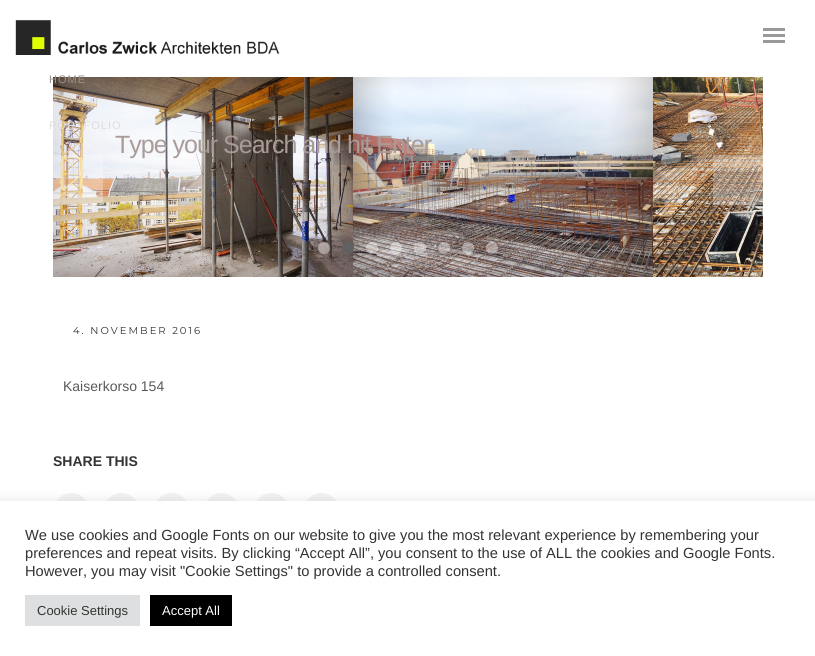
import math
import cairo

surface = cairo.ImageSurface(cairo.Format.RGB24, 815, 656)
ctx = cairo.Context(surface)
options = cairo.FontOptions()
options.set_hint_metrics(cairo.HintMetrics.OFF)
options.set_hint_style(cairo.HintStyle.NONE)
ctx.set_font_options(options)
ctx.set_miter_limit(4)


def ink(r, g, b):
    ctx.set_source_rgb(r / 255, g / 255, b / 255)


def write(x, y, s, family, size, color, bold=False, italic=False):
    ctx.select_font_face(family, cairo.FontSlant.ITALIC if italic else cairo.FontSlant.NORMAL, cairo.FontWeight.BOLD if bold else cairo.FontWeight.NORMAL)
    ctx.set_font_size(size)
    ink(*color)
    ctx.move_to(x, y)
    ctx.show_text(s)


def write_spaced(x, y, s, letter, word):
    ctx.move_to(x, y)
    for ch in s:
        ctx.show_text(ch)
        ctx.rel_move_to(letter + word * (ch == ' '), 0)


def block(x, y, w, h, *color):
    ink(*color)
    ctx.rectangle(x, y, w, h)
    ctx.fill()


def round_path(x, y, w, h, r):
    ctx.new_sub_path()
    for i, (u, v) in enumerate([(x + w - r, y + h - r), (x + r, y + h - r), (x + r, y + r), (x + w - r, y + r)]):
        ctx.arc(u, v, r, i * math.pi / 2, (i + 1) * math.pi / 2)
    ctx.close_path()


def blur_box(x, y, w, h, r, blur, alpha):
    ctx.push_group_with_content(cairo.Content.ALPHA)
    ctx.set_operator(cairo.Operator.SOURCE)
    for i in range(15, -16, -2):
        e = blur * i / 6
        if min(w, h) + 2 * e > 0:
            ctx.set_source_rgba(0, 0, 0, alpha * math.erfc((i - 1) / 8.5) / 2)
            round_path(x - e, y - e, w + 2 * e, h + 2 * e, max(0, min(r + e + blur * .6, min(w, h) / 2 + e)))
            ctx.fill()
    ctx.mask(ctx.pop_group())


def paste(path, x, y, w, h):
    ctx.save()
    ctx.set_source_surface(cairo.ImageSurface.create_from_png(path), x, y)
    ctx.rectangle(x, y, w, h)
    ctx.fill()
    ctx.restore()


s1 = dict(family="Liberation Sans", size=14, color=(89, 89, 89))
s2 = dict(family="Liberation Sans", size=14, color=(51, 51, 51), bold=True)
s3 = dict(family="Liberation Sans", size=14.67, color=(51, 51, 51))
s4 = dict(family="Liberation Sans", size=13, color=(51, 51, 51))
s5 = dict(family="Liberation Sans", size=13, color=(255, 255, 255))

ink(255, 255, 255)
ctx.paint()
paste("pic1.png", 15, 20, 265, 35)
block(763, 40, 22, 3, 153, 153, 153)
block(763, 34, 22, 3, 153, 153, 153)
block(763, 28, 22, 3, 153, 153, 153)
paste("pic2.png", 53, 77, 300, 200)
ctx.select_font_face("Liberation Sans")
ctx.set_font_size(11)
ink(155, 145, 138)
write_spaced(49, 83, "HOME", 1, 0)
ink(225, 220, 217)
write_spaced(49, 129, "PORTFOLIO", 1, 0)
paste("pic3.png", 353, 77, 300, 200)
ctx.set_font_size(25)
ink(168, 155, 152)
write_spaced(115, 153, "Type your Search and hit Enter", -1, 0)
paste("pic4.png", 653, 77, 110, 200)
ctx.set_source_rgba(1, 1, 1, 0.3)
ctx.rectangle(53, 155, 50, 50)
ctx.fill()
ctx.rectangle(713, 155, 50, 50)
ctx.fill()
ctx.set_source_rgba(1, 1, 1, 0.4)
ctx.arc(324, 248, 6, 0, 2 * math.pi)
ctx.fill()
ink(97, 97, 97)
ctx.arc(348, 248, 6, 0, 2 * math.pi)
ctx.fill()
ctx.set_source_rgba(1, 1, 1, 0.4)
ctx.arc(372, 248, 6, 0, 2 * math.pi)
ctx.fill()
ctx.arc(396, 248, 6, 0, 2 * math.pi)
ctx.fill()
ctx.arc(420, 248, 6, 0, 2 * math.pi)
ctx.fill()
ctx.arc(444, 248, 6, 0, 2 * math.pi)
ctx.fill()
ctx.arc(468, 248, 6, 0, 2 * math.pi)
ctx.fill()
ctx.arc(492, 248, 6, 0, 2 * math.pi)
ctx.fill()
ctx.select_font_face("Montserrat")
ctx.set_font_size(10)
ink(51, 51, 51)
write_spaced(73, 334, "4. NOVEMBER 2016", 2, 0)
write(63, 391, "Kaiserkorso 154", **s1)
write(53, 466, "SHARE THIS", **s2)
ink(242, 242, 242)
ctx.new_path()
ctx.arc(71.5, 510.5, 17.5, 0, 2 * math.pi)
ctx.fill()
ctx.arc(121.5, 510.5, 17.5, 0, 2 * math.pi)
ctx.fill()
ctx.arc(171.5, 510.5, 17.5, 0, 2 * math.pi)
ctx.fill()
ctx.arc(221.5, 510.5, 17.5, 0, 2 * math.pi)
ctx.fill()
ctx.arc(271.5, 510.5, 17.5, 0, 2 * math.pi)
ctx.fill()
ctx.arc(321.5, 510.5, 17.5, 0, 2 * math.pi)
ctx.fill()
ink(172, 171, 171)
blur_box(0, 500, 815, 155, 0, 5, 0.3)
block(0, 501, 815, 155, 255, 255, 255)
write(25, 540, "We use cookies and Google Fonts on our website to give you the most relevant experience by remembering your", **s3)
write(25, 558, "preferences and repeat visits. By clicking “Accept All”, you consent to the use of ALL the cookies and Google Fonts.", **s3)
write(25, 576, "However, you may visit \"Cookie Settings\" to provide a controlled consent.", **s3)
block(25, 595, 115, 31, 222, 223, 224)
write(37, 615, "Cookie Settings", **s4)
block(150, 595, 82, 31, 0, 0, 0)
write(162, 615, "Accept All", **s5)
surface.write_to_png("screenshot.png")
